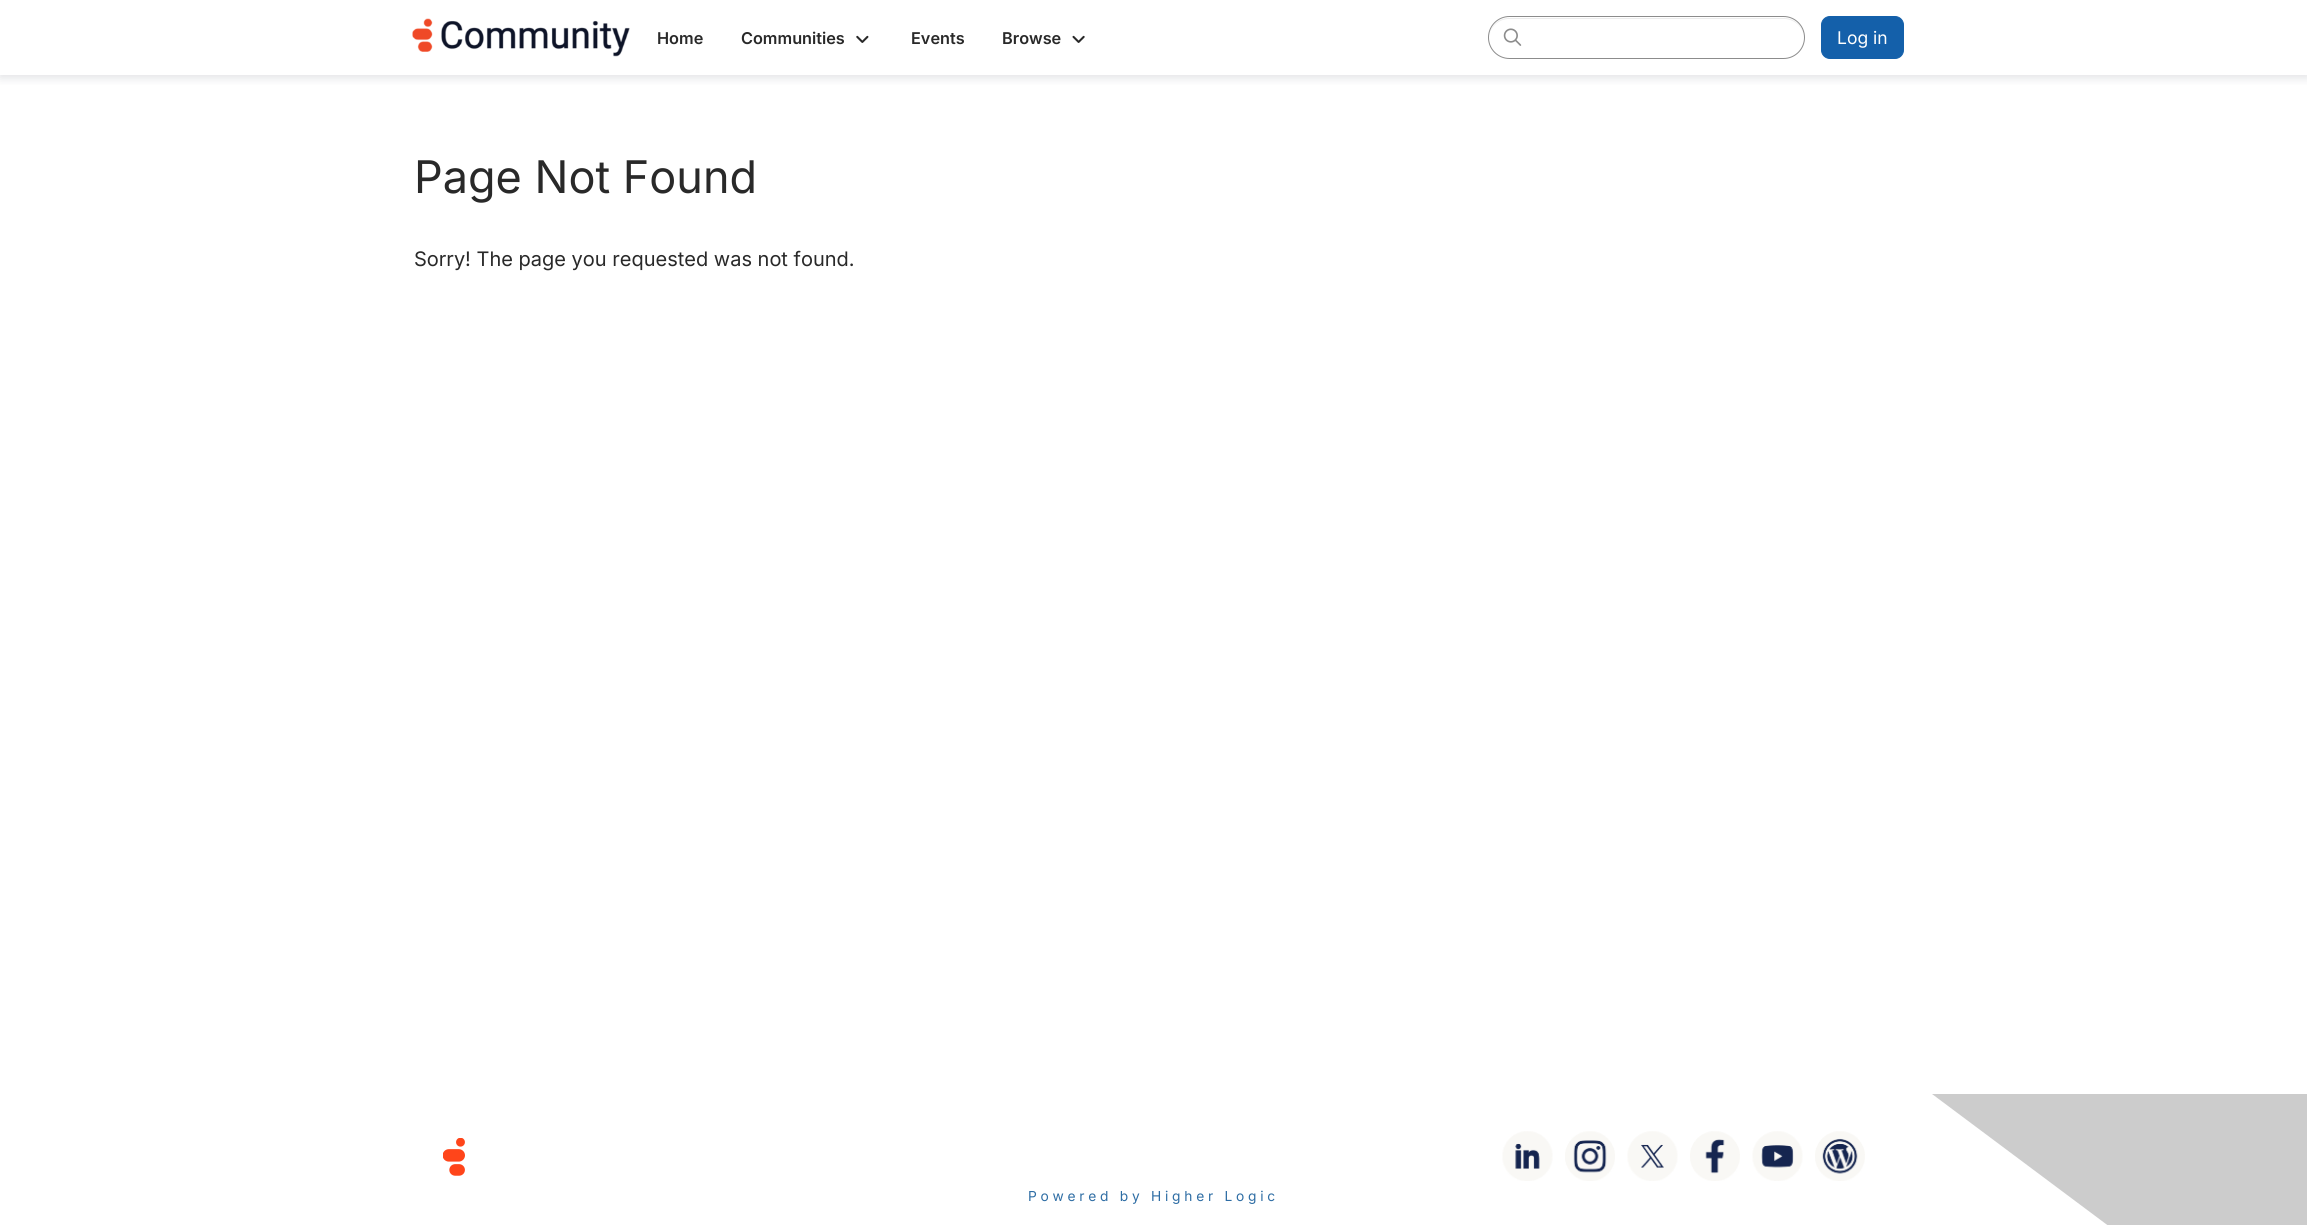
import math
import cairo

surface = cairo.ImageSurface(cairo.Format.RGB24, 2307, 1225)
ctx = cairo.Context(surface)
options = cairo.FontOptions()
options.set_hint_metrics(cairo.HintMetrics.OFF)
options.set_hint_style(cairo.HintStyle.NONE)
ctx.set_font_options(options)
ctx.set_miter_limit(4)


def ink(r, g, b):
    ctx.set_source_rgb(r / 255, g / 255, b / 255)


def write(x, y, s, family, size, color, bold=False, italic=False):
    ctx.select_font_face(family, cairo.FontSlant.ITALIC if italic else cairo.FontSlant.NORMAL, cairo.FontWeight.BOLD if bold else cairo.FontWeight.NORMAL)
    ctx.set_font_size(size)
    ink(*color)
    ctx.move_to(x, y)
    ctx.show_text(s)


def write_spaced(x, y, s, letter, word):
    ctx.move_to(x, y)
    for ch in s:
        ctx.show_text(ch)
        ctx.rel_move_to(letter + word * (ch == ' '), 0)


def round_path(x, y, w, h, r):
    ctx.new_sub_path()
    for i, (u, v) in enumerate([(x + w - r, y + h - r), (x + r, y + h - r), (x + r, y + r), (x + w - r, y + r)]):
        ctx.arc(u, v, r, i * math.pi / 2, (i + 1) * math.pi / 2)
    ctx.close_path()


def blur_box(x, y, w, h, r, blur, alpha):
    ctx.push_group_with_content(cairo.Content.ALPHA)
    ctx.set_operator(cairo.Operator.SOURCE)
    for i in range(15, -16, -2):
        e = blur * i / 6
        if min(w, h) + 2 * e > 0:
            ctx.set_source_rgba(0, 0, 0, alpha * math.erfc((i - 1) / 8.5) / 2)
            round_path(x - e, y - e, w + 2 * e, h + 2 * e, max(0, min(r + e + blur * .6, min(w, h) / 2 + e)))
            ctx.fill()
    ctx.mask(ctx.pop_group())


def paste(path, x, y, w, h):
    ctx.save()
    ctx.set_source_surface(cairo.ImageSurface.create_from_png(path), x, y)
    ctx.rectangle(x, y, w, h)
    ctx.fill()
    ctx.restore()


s1 = dict(family="Inter SemiBold", size=16.25, color=(41, 41, 41))
s2 = dict(family="Inter", size=17.5, color=(255, 255, 255))
s3 = dict(family="Inter", size=45, color=(41, 41, 41))
s4 = dict(family="Inter", size=20, color=(41, 41, 41))

ink(255, 255, 255)
ctx.paint()
ctx.save()
ctx.rectangle(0, 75, 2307, 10)
ctx.clip()
ink(131, 135, 145)
blur_box(0, 3, 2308, 75, 0, 5, 0.24)
ctx.restore()
paste("pic1.png", 412, 18, 218, 39)
write(657, 44, "Home", **s1)
write(741, 44, "Communities", **s1)
paste("pic2.png", 856, 35, 13, 8)
write(911, 44, "Events", **s1)
write(1002, 44, "Browse", **s1)
paste("pic3.png", 1072, 35, 13, 8)
ink(236, 236, 236)
ctx.new_path()
ctx.move_to(1509, 19)
ctx.line_to(1784, 19)
ctx.curve_to(1795, 19, 1804, 28, 1804, 39)
ctx.curve_to(1804, 27, 1795, 18, 1784, 18)
ctx.line_to(1509, 18)
ctx.curve_to(1498, 18, 1489, 27, 1489, 39)
ctx.curve_to(1489, 28, 1498, 19, 1509, 19)
ctx.close_path()
ctx.fill()
round_path(1488.5, 16.5, 316, 42, 21)
ink(140, 140, 140)
ctx.set_line_width(1)
ctx.stroke()
paste("pic4.png", 1503, 28, 19, 18)
ink(20, 96, 170)
round_path(1821.5, 16.5, 82, 42, 8.5)
ctx.fill_preserve()
ctx.stroke()
write(1837, 44, "Log in", **s2)
write(414, 193, "Page Not Found", **s3)
write(414, 266, "Sorry! The page you requested was not found.", **s4)
paste("pic5.png", 443, 1138, 22, 38)
paste("pic6.png", 1502, 1131, 51, 50)
paste("pic7.png", 1565, 1131, 50, 50)
paste("pic8.png", 1627, 1131, 51, 50)
paste("pic9.png", 1690, 1131, 50, 50)
paste("pic10.png", 1752, 1131, 51, 50)
paste("pic11.png", 1815, 1131, 50, 50)
ink(204, 204, 204)
ctx.new_path()
ctx.move_to(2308, 1094)
ctx.line_to(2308, 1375)
ctx.line_to(1932, 1094)
ctx.close_path()
ctx.fill()
ctx.set_font_size(13.75)
ink(46, 109, 164)
write_spaced(1028, 1201, "Powered by Higher Logic", 3.75, 0)
surface.write_to_png("screenshot.png")
